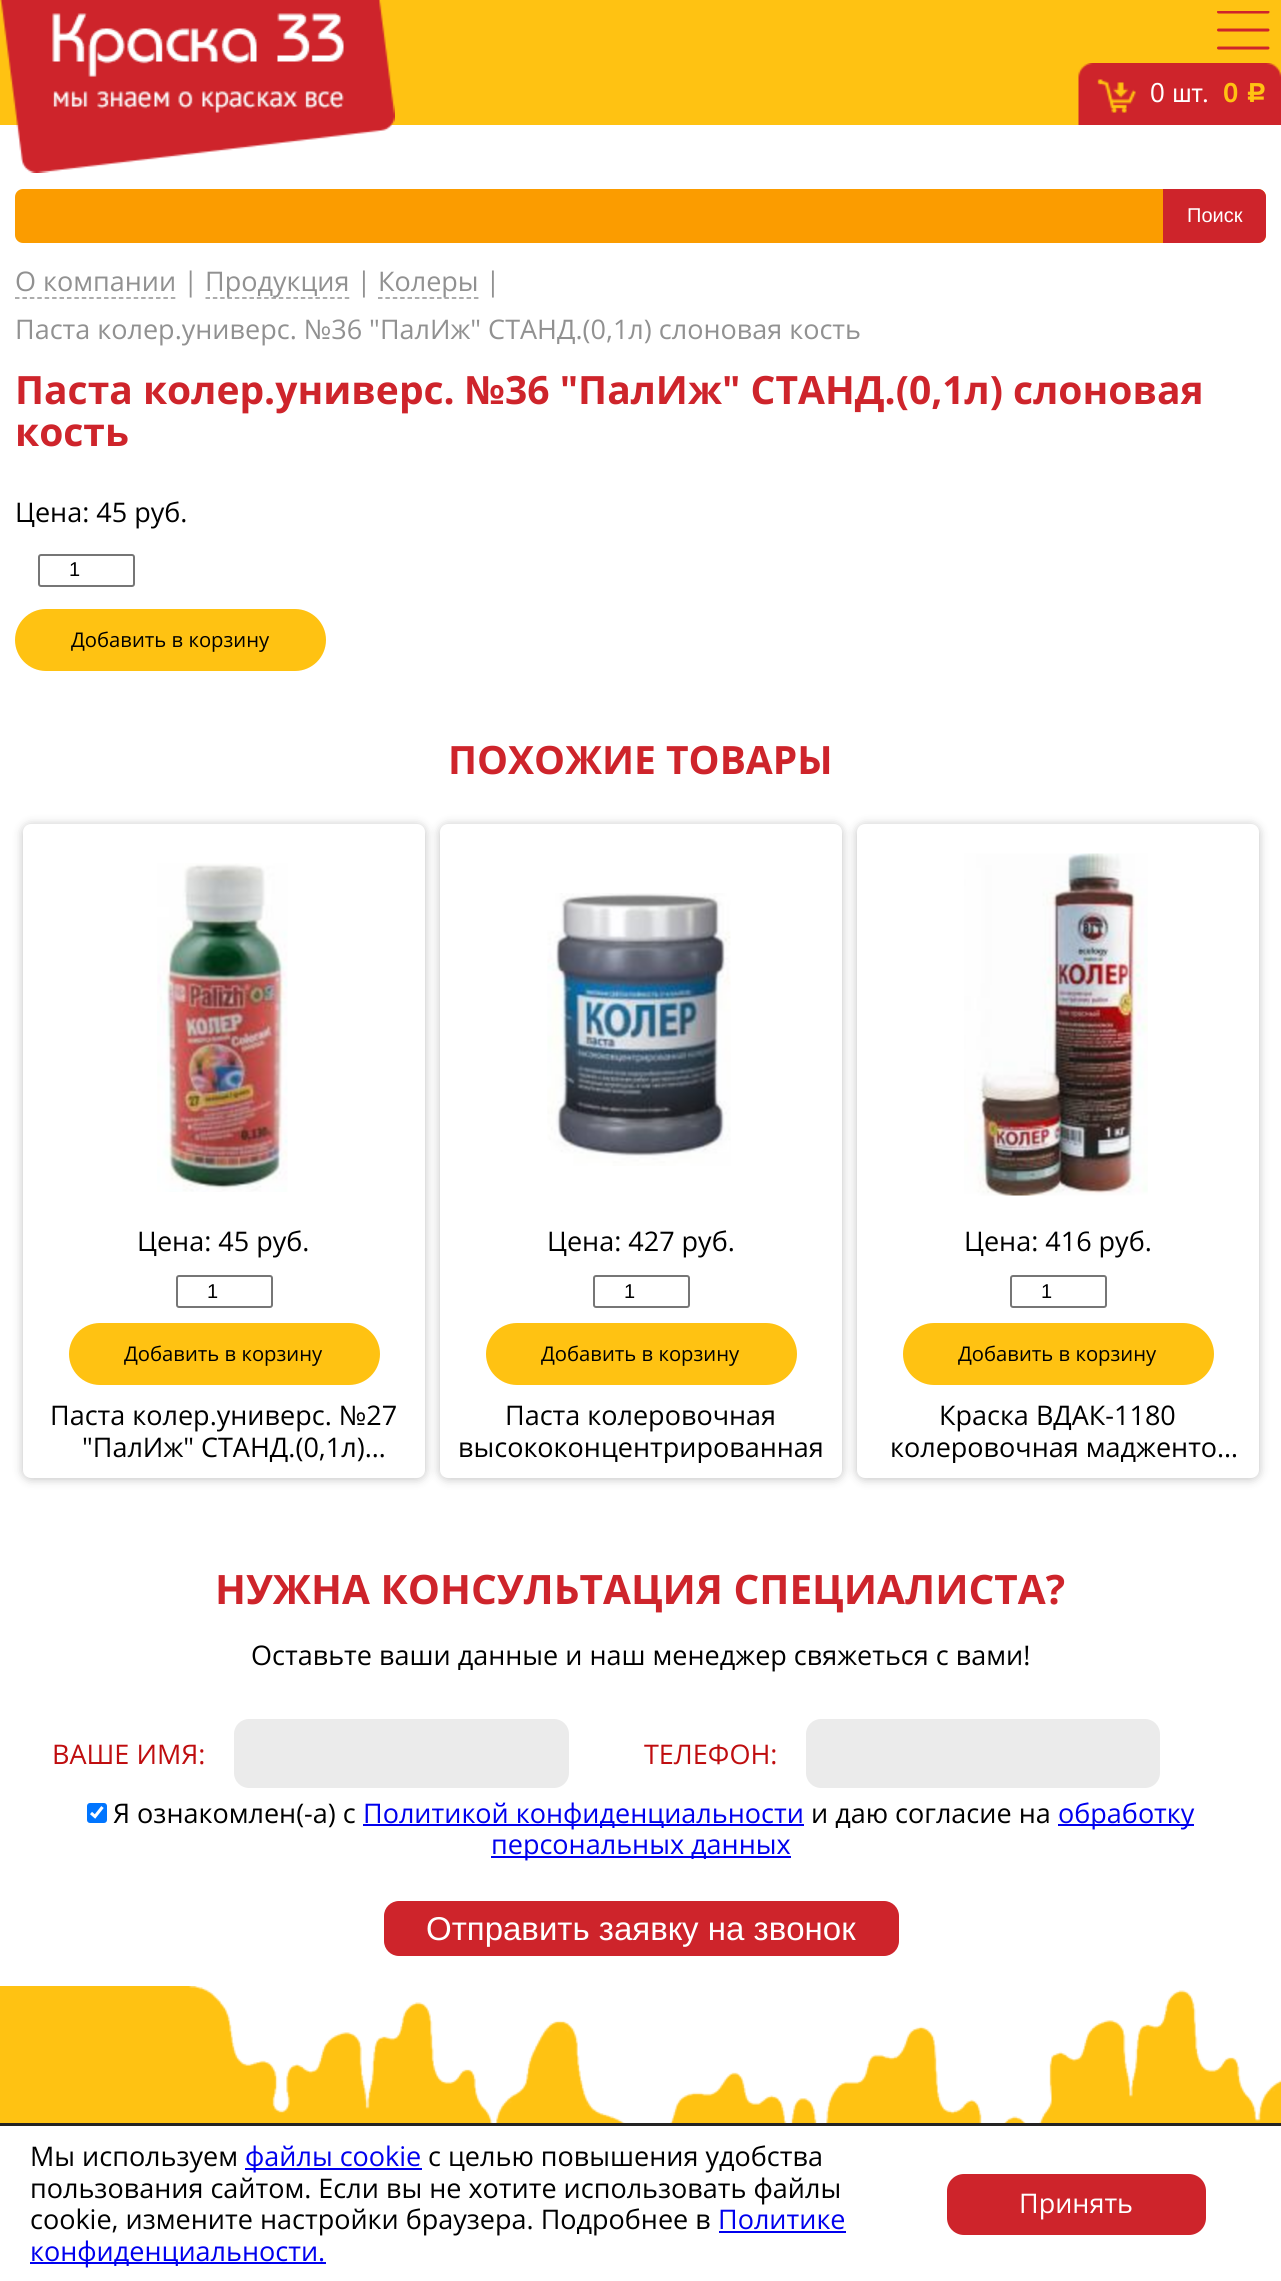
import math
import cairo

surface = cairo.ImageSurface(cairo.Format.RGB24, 1281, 2281)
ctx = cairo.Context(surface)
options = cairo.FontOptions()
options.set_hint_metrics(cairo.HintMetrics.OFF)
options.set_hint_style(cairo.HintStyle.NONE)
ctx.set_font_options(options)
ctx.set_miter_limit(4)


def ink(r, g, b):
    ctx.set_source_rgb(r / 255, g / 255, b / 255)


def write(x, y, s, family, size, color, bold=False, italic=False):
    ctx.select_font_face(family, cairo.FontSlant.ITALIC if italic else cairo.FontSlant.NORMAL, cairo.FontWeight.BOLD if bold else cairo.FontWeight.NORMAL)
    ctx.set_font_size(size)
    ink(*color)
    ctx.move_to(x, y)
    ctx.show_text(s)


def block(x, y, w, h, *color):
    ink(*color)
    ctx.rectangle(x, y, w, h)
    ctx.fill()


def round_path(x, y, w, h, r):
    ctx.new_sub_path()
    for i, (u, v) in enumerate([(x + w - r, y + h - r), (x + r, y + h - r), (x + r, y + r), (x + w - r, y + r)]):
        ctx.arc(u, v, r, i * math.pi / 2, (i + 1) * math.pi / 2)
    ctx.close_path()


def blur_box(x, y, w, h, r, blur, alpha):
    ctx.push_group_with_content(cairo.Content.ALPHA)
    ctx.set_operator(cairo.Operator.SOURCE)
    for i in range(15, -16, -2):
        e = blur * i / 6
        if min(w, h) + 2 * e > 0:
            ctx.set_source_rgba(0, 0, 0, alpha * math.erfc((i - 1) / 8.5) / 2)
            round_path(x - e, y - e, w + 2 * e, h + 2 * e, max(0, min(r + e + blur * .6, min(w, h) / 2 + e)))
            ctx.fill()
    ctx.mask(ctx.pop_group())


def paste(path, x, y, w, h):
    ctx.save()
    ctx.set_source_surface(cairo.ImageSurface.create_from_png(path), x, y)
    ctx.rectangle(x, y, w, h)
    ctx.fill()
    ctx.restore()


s1 = dict(family="PT Sans", size=27, color=(255, 255, 255))
s2 = dict(family="PT Sans", size=27, color=(255, 194, 18), bold=True)
s3 = dict(family="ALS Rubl", size=27, color=(255, 194, 18))
s4 = dict(family="Liberation Sans", size=20, color=(255, 255, 255))
s5 = dict(family="Open Sans", size=27, color=(145, 145, 145))
s6 = dict(family="Open Sans", size=39, color=(206, 36, 43), bold=True)
s7 = dict(family="Open Sans", size=27, color=(0, 0, 0))
s8 = dict(family="Liberation Sans", size=20, color=(0, 0, 0))
s9 = dict(family="Open Sans", size=20.25, color=(0, 0, 0))
s10 = dict(family="Open Sans", size=40.5, color=(206, 36, 43), bold=True)
s11 = dict(family="Open Sans", size=27, color=(191, 13, 15))
s12 = dict(family="Open Sans", size=27, color=(0, 0, 238))
s13 = dict(family="Liberation Sans", size=33, color=(255, 255, 255))
s14 = dict(family="Open Sans", size=27, color=(255, 255, 255))

ink(255, 255, 255)
ctx.paint()
block(0, 0, 1281, 125, 255, 194, 18)
paste("pic1.png", 0, 0, 395, 173)
ctx.save()
ctx.rectangle(1217, 11, 54, 39)
ctx.clip()
ctx.new_path()
ctx.move_to(1218.5, 12)
ctx.line_to(1268, 12)
ink(206, 36, 43)
ctx.set_line_width(3)
ctx.set_line_cap(cairo.LineCap.ROUND)
ctx.set_line_join(cairo.LineJoin.ROUND)
ctx.stroke()
ctx.restore()
ctx.new_path()
ctx.move_to(1218.5, 30)
ctx.line_to(1268, 30)
ctx.move_to(1218.5, 48)
ctx.line_to(1268, 48)
ink(206, 36, 43)
ctx.set_line_width(3)
ctx.set_line_cap(cairo.LineCap.ROUND)
ctx.set_line_join(cairo.LineJoin.ROUND)
ctx.stroke()
block(1135, 63, 146, 62, 206, 36, 43)
paste("pic2.png", 1078, 63, 58, 62)
paste("pic3.png", 1266, 63, 15, 14)
write(1150, 102, "0 шт.", **s1)
write(1223, 102, "0", **s2)
write(1246, 102, "c", **s3)
ink(251, 156, 0)
round_path(15, 189, 1251, 54, 8)
ctx.fill()
ink(206, 36, 43)
ctx.new_path()
ctx.move_to(1163, 189)
ctx.line_to(1258, 189)
ctx.curve_to(1262.5, 189, 1266, 192.5, 1266, 197)
ctx.line_to(1266, 235)
ctx.curve_to(1266, 239.5, 1262.5, 243, 1258, 243)
ctx.line_to(1163, 243)
ctx.close_path()
ctx.fill()
write(1187, 222, "Поиск", **s4)
ctx.new_path()
ctx.move_to(15, 298)
ctx.line_to(175.5, 298)
ink(145, 145, 145)
ctx.set_line_width(1.5)
ctx.set_line_cap(cairo.LineCap.BUTT)
ctx.set_line_join(cairo.LineJoin.MITER)
ctx.set_dash([4.5, 2.92])
ctx.stroke()
write(15, 291, "О компании |", **s5)
ctx.new_path()
ctx.move_to(205.5, 298)
ctx.line_to(349.5, 298)
ctx.set_dash([4.5, 2.83])
ctx.stroke()
write(205, 291, "Продукция |", **s5)
ctx.new_path()
ctx.move_to(378, 298)
ctx.line_to(478.5, 298)
ctx.set_dash([4.5, 2.88])
ctx.stroke()
write(378, 291, "Колеры |", **s5)
write(15, 339, "Паста колер.универс. №36 \"ПалИж\" СТАНД.(0,1л) слоновая кость", **s5)
write(15, 404, "Паста колер.универс. №36 \"ПалИж\" СТАНД.(0,1л) слоновая", **s6)
write(15, 446, "кость", **s6)
write(15, 522, "Цена: 45 руб.", **s7)
round_path(39, 555, 95, 31, 2)
ink(118, 118, 118)
ctx.set_line_width(2)
ctx.set_dash([])
ctx.stroke()
write(69, 576, "1", **s8)
ink(255, 194, 18)
round_path(15, 609, 311, 62, 31)
ctx.fill()
write(71, 647, "Добавить в корзину", **s9)
write(448, 774, "ПОХОЖИЕ ТОВАРЫ", **s6)
ink(0, 0, 0)
blur_box(23, 825, 402, 654, 8, 5, 0.25)
ink(255, 255, 255)
round_path(23, 824, 402, 654, 8)
ctx.fill()
paste("pic4.png", 157, 863, 131, 329)
write(137, 1251, "Цена: 45 руб.", **s7)
round_path(177, 1276, 95, 31, 2)
ink(118, 118, 118)
ctx.stroke()
write(207, 1298, "1", **s8)
ink(255, 194, 18)
round_path(69, 1323, 311, 62, 31)
ctx.fill()
write(124, 1361, "Добавить в корзину", **s9)
write(50, 1425, "Паста колер.универс. №27", **s7)
write(82, 1457, "\"ПалИж\" СТАНД.(0,1л)…", **s7)
ink(0, 0, 0)
blur_box(440, 825, 402, 654, 8, 5, 0.25)
ink(255, 255, 255)
round_path(440, 824, 402, 654, 8)
ctx.fill()
paste("pic5.png", 547, 893, 184, 273)
write(547, 1251, "Цена: 427 руб.", **s7)
round_path(594, 1276, 95, 31, 2)
ink(118, 118, 118)
ctx.stroke()
write(624, 1298, "1", **s8)
ink(255, 194, 18)
round_path(486, 1323, 311, 62, 31)
ctx.fill()
write(541, 1361, "Добавить в корзину", **s9)
write(505, 1425, "Паста колеровочная", **s7)
ctx.save()
ctx.rectangle(455, 1400, 372, 63)
ctx.clip()
write(458, 1457, "высококонцентрированная", **s7)
ctx.restore()
ink(0, 0, 0)
blur_box(857, 825, 402, 654, 8, 5, 0.25)
ink(255, 255, 255)
round_path(857, 824, 402, 654, 8)
ctx.fill()
paste("pic6.png", 964, 853, 184, 343)
write(964, 1251, "Цена: 416 руб.", **s7)
round_path(1011, 1276, 95, 31, 2)
ink(118, 118, 118)
ctx.stroke()
write(1041, 1298, "1", **s8)
ink(255, 194, 18)
round_path(903, 1323, 311, 62, 31)
ctx.fill()
write(958, 1361, "Добавить в корзину", **s9)
write(939, 1425, "Краска ВДАК-1180", **s7)
ctx.save()
ctx.rectangle(872, 1400, 372, 63)
ctx.clip()
write(890, 1457, "колеровочная мадженто…", **s7)
ctx.restore()
write(215, 1604, "НУЖНА КОНСУЛЬТАЦИЯ СПЕЦИАЛИСТА?", **s10)
write(251, 1665, "Оставьте ваши данные и наш менеджер свяжеться с вами!", **s7)
write(52, 1764, "ВАШЕ ИМЯ:", **s11)
ink(235, 235, 235)
round_path(234, 1719, 335, 69, 15)
ctx.fill()
write(644, 1764, "ТЕЛЕФОН:", **s11)
ink(235, 235, 235)
round_path(806, 1719, 354, 69, 15)
ctx.fill()
ink(0, 117, 255)
round_path(87, 1803, 20, 20, 3)
ctx.fill()
ctx.new_path()
ctx.move_to(91, 1813)
ctx.line_to(95, 1816.5)
ctx.line_to(102.5, 1807)
ink(255, 255, 255)
ctx.set_line_width(3.1)
ctx.stroke()
write(113, 1823, "Я ознакомлен(-а) с", **s7)
block(363, 1824, 441, 2, 0, 0, 238)
write(363, 1823, "Политикой конфиденциальности", **s12)
write(811, 1823, "и даю согласие на", **s7)
block(1058, 1824, 136, 2, 0, 0, 238)
write(1058, 1823, "обработку", **s12)
block(491, 1856, 300, 2, 0, 0, 238)
write(491, 1854, "персональных данных", **s12)
ink(206, 36, 43)
round_path(384, 1901, 515, 55, 15)
ctx.fill()
write(426, 1940, "Отправить заявку на звонок", **s13)
block(0, 1986, 189, 137, 255, 194, 18)
paste("pic7.png", 189, 1986, 1092, 137)
block(0, 2123, 1281, 3, 35, 35, 35)
write(30, 2166, "Мы используем", **s7)
block(245, 2168, 177, 2, 0, 0, 238)
write(245, 2166, "файлы cookie", **s12)
write(428, 2166, "с целью повышения удобства", **s7)
write(30, 2198, "пользования сайтом. Если вы не хотите использовать файлы", **s7)
write(30, 2229, "cookie, измените настройки браузера. Подробнее в", **s7)
write(718, 2229, "Политике", **s12)
block(719, 2231, 127, 2, 0, 0, 238)
block(30, 2262, 296, 2, 0, 0, 238)
write(30, 2261, "конфиденциальности.", **s12)
ink(206, 36, 43)
round_path(947, 2174, 259, 61, 17)
ctx.fill()
write(1019, 2213, "Принять", **s14)
surface.write_to_png("screenshot.png")
